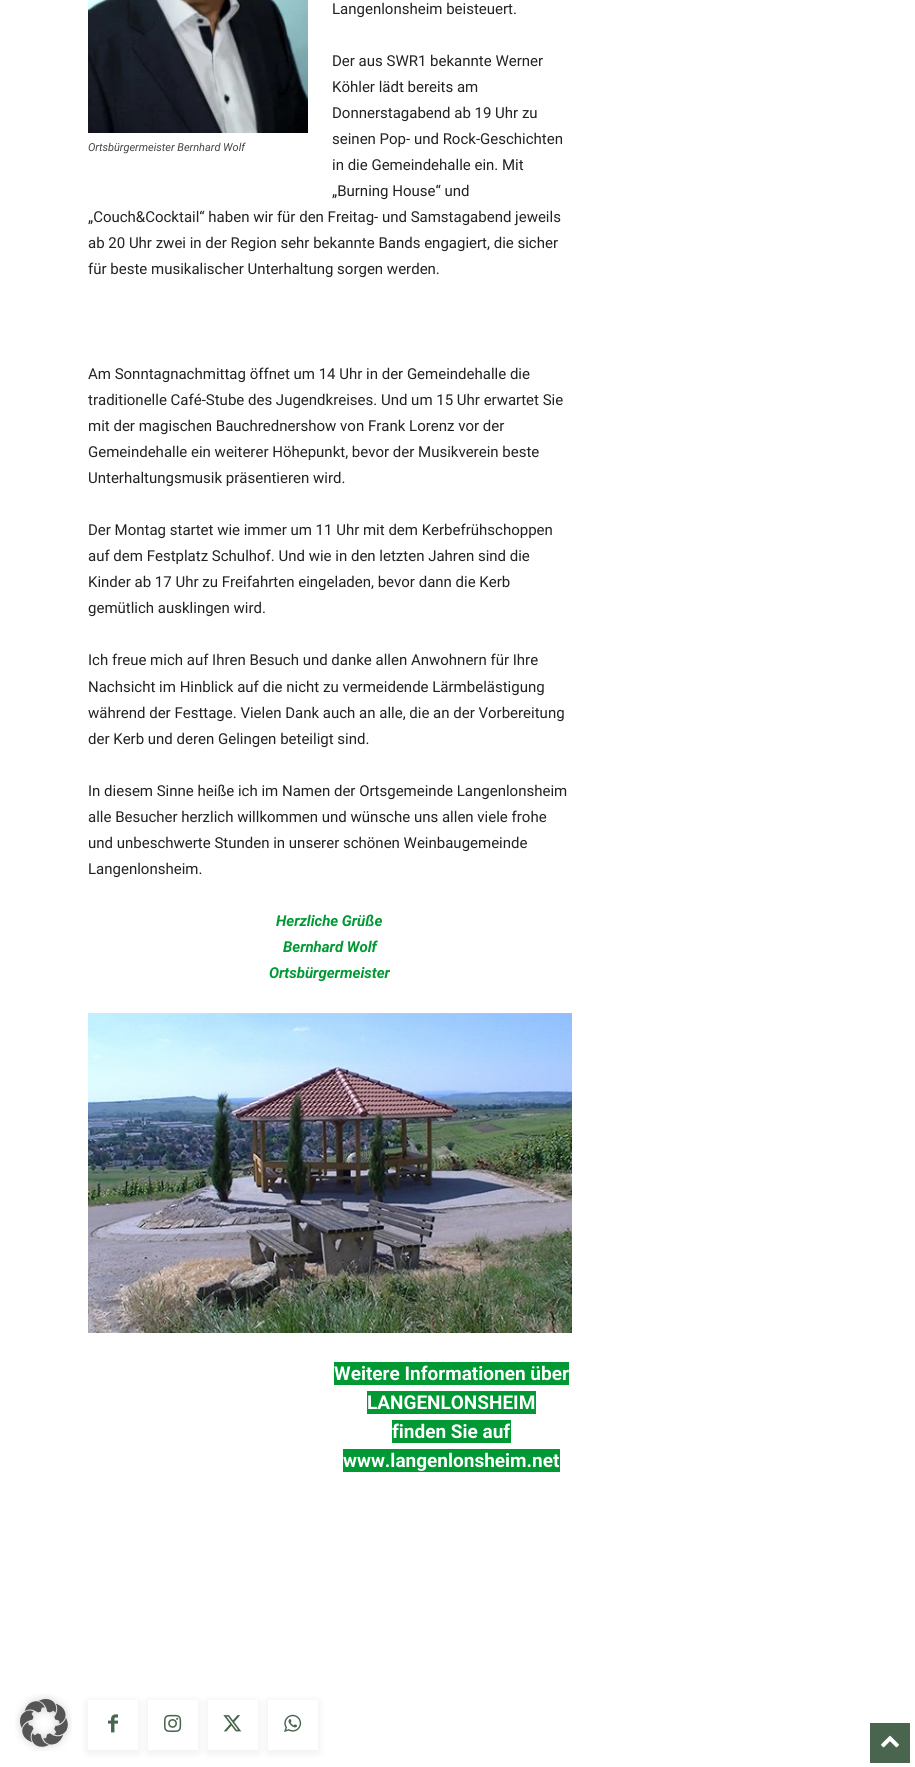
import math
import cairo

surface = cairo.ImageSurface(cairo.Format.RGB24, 915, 1767)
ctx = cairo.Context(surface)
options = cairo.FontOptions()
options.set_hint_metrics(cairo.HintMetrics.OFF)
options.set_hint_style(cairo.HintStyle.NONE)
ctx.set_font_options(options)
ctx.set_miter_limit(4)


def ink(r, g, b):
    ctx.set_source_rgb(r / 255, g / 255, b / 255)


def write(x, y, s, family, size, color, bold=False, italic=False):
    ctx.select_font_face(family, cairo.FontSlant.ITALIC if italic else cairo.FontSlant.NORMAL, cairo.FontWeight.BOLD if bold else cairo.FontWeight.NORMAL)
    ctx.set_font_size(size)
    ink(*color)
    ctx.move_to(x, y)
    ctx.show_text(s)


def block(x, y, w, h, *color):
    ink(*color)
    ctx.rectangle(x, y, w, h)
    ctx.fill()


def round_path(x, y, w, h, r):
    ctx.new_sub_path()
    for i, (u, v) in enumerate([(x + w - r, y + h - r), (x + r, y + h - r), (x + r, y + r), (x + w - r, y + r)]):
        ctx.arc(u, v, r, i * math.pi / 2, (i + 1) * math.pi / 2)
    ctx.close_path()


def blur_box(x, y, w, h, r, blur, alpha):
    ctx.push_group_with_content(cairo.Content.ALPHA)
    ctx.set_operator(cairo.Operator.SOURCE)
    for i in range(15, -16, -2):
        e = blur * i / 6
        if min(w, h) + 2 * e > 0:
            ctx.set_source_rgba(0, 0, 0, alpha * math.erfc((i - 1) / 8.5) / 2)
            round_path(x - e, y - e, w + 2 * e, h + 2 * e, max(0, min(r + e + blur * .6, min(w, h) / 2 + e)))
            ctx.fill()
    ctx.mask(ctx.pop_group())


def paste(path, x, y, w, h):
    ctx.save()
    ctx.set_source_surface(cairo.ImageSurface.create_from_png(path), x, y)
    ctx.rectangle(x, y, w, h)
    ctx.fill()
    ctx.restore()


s1 = dict(family="Roboto", size=15, color=(34, 34, 34))
s2 = dict(family="Roboto", size=11, color=(68, 68, 68), italic=True)
s3 = dict(family="Roboto", size=15, color=(0, 153, 51), bold=True, italic=True)
s4 = dict(family="Roboto", size=19, color=(255, 255, 255), bold=True)

ink(255, 255, 255)
ctx.paint()
write(332, 14, "Langenlonsheim beisteuert.", **s1)
write(332, 66, "Der aus SWR1 bekannte Werner", **s1)
write(332, 92, "Köhler lädt bereits am", **s1)
write(332, 118, "Donnerstagabend ab 19 Uhr zu", **s1)
write(332, 144, "seinen Pop- und Rock-Geschichten", **s1)
write(332, 170, "in die Gemeindehalle ein. Mit", **s1)
write(332, 196, "„Burning House“ und", **s1)
write(88, 222, "„Couch&Cocktail“ haben wir für den Freitag- und Samstagabend jeweils", **s1)
write(88, 248, "ab 20 Uhr zwei in der Region sehr bekannte Bands engagiert, die sicher", **s1)
write(88, 274, "für beste musikalischer Unterhaltung sorgen werden.", **s1)
paste("pic1.png", 88, 0, 220, 133)
write(88, 151, "Ortsbürgermeister Bernhard Wolf", **s2)
write(88, 379, "Am Sonntagnachmittag öffnet um 14 Uhr in der Gemeindehalle die", **s1)
write(88, 405, "traditionelle Café-Stube des Jugendkreises. Und um 15 Uhr erwartet Sie", **s1)
write(88, 431, "mit der magischen Bauchrednershow von Frank Lorenz vor der", **s1)
write(88, 457, "Gemeindehalle ein weiterer Höhepunkt, bevor der Musikverein beste", **s1)
write(88, 483, "Unterhaltungsmusik präsentieren wird.", **s1)
write(88, 535, "Der Montag startet wie immer um 11 Uhr mit dem Kerbefrühschoppen", **s1)
write(88, 561, "auf dem Festplatz Schulhof. Und wie in den letzten Jahren sind die", **s1)
write(88, 587, "Kinder ab 17 Uhr zu Freifahrten eingeladen, bevor dann die Kerb", **s1)
write(88, 613, "gemütlich ausklingen wird.", **s1)
write(88, 665, "Ich freue mich auf Ihren Besuch und danke allen Anwohnern für Ihre", **s1)
write(88, 692, "Nachsicht im Hinblick auf die nicht zu vermeidende Lärmbelästigung", **s1)
write(88, 718, "während der Festtage. Vielen Dank auch an alle, die an der Vorbereitung", **s1)
write(88, 744, "der Kerb und deren Gelingen beteiligt sind.", **s1)
write(88, 796, "In diesem Sinne heiße ich im Namen der Ortsgemeinde Langenlonsheim", **s1)
write(88, 822, "alle Besucher herzlich willkommen und wünsche uns allen viele frohe", **s1)
write(88, 848, "und unbeschwerte Stunden in unserer schönen Weinbaugemeinde", **s1)
write(88, 874, "Langenlonsheim.", **s1)
write(276, 926, "Herzliche Grüße", **s3)
write(283, 952, "Bernhard Wolf", **s3)
write(269, 978, "Ortsbürgermeister", **s3)
paste("pic2.png", 88, 1013, 484, 320)
block(334, 1362, 235, 23, 0, 153, 51)
write(334, 1380, "Weitere Informationen über", **s4)
block(367, 1391, 169, 23, 0, 153, 51)
write(367, 1409, "LANGENLONSHEIM", **s4)
block(392, 1420, 119, 23, 0, 153, 51)
write(392, 1438, "finden Sie auf", **s4)
block(343, 1449, 217, 23, 0, 153, 51)
write(343, 1467, "www.langenlonsheim.net", **s4)
ctx.save()
ctx.set_fill_rule(cairo.FillRule.EVEN_ODD)
ctx.new_path()
ctx.move_to(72, 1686)
ctx.line_to(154, 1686)
ctx.line_to(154, 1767)
ctx.line_to(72, 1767)
ctx.close_path()
ctx.move_to(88, 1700)
ctx.line_to(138, 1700)
ctx.line_to(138, 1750)
ctx.line_to(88, 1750)
ctx.close_path()
ctx.clip()
ink(0, 0, 0)
blur_box(88, 1702, 50, 50, 0, 5, 0.08)
ctx.restore()
paste("pic3.png", 108, 1714, 10, 19)
ctx.save()
ctx.set_fill_rule(cairo.FillRule.EVEN_ODD)
ctx.new_path()
ctx.move_to(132, 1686)
ctx.line_to(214, 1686)
ctx.line_to(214, 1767)
ctx.line_to(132, 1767)
ctx.close_path()
ctx.move_to(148, 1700)
ctx.line_to(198, 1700)
ctx.line_to(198, 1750)
ctx.line_to(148, 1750)
ctx.close_path()
ctx.clip()
ink(0, 0, 0)
blur_box(148, 1702, 50, 50, 0, 5, 0.08)
ctx.restore()
paste("pic4.png", 164, 1714, 18, 18)
ctx.save()
ctx.set_fill_rule(cairo.FillRule.EVEN_ODD)
ctx.new_path()
ctx.move_to(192, 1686)
ctx.line_to(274, 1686)
ctx.line_to(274, 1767)
ctx.line_to(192, 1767)
ctx.close_path()
ctx.move_to(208, 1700)
ctx.line_to(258, 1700)
ctx.line_to(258, 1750)
ctx.line_to(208, 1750)
ctx.close_path()
ctx.clip()
ink(0, 0, 0)
blur_box(208, 1702, 50, 50, 0, 5, 0.08)
ctx.restore()
paste("pic5.png", 223, 1715, 19, 17)
ctx.save()
ctx.set_fill_rule(cairo.FillRule.EVEN_ODD)
ctx.new_path()
ctx.move_to(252, 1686)
ctx.line_to(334, 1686)
ctx.line_to(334, 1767)
ctx.line_to(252, 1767)
ctx.close_path()
ctx.move_to(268, 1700)
ctx.line_to(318, 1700)
ctx.line_to(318, 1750)
ctx.line_to(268, 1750)
ctx.close_path()
ctx.clip()
ink(0, 0, 0)
blur_box(268, 1702, 50, 50, 0, 5, 0.08)
ctx.restore()
paste("pic6.png", 284, 1714, 18, 18)
paste("pic7.png", 15, 1694, 57, 57)
block(870, 1723, 40, 40, 73, 101, 78)
paste("pic8.png", 881, 1735, 18, 13)
surface.write_to_png("screenshot.png")
